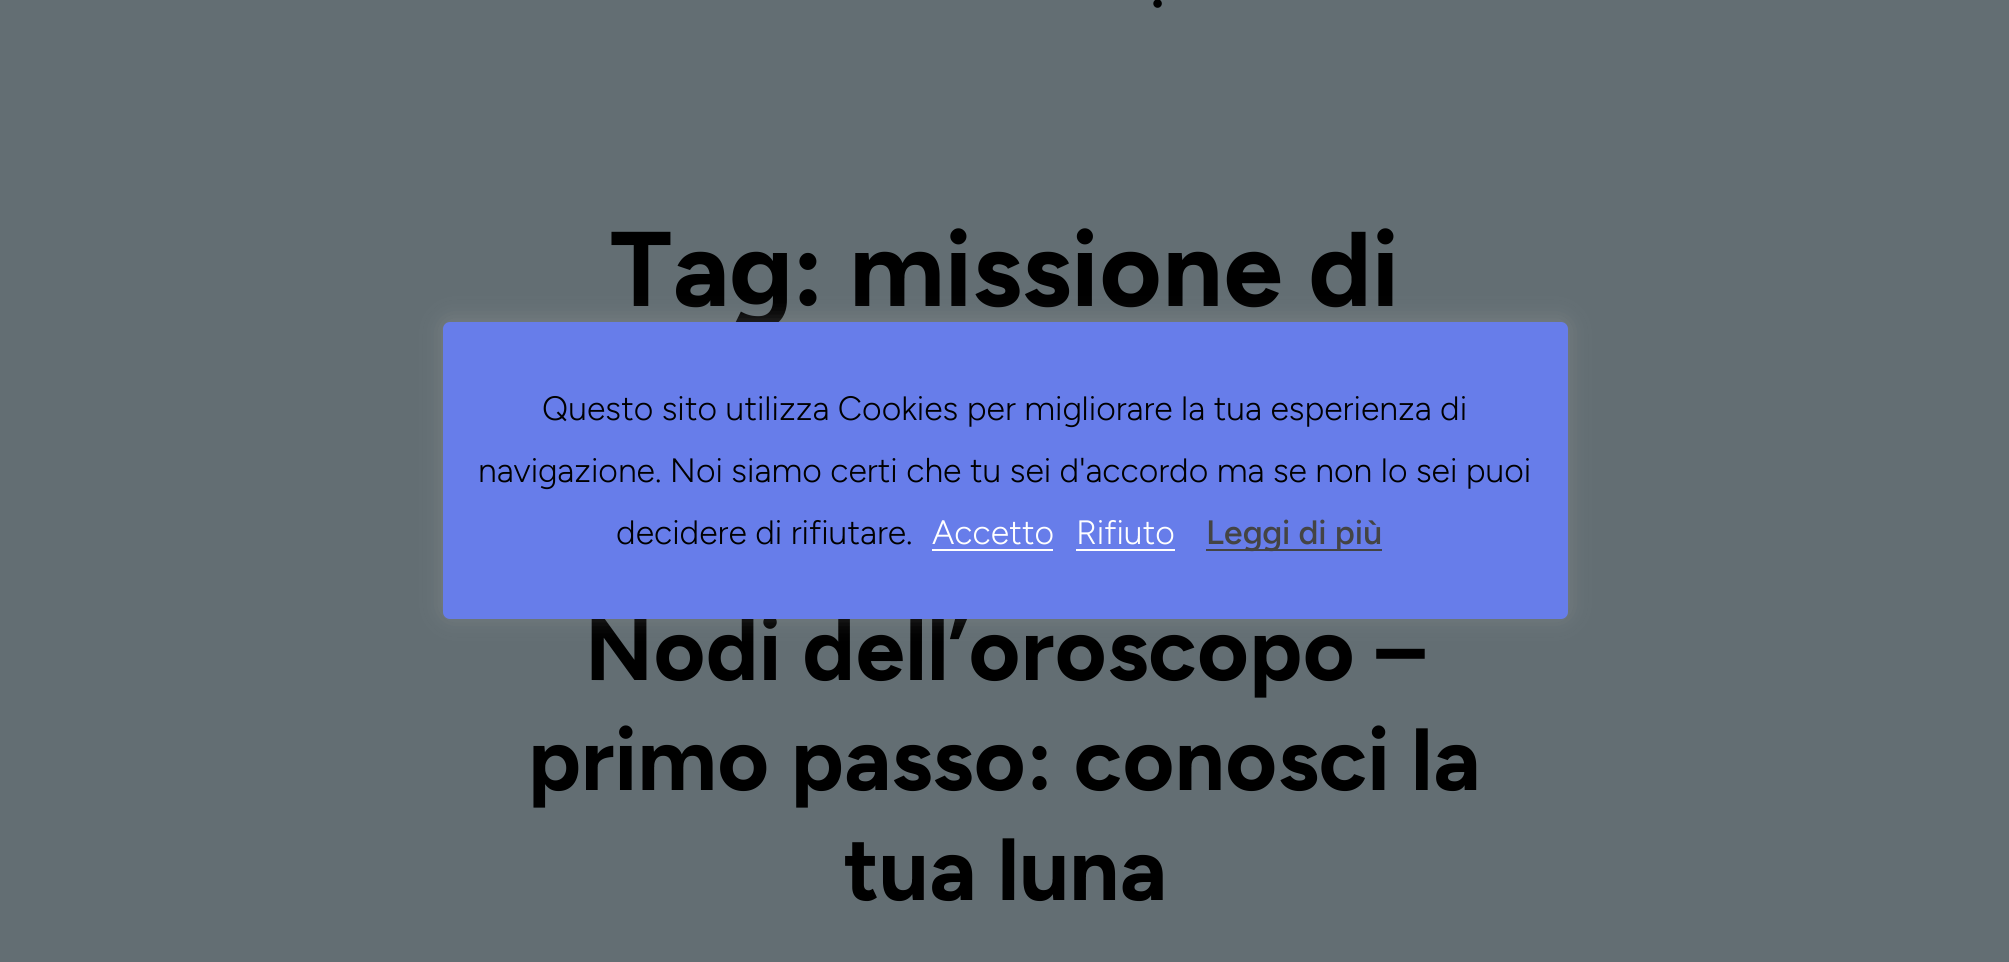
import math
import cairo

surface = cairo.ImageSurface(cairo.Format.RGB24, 2009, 962)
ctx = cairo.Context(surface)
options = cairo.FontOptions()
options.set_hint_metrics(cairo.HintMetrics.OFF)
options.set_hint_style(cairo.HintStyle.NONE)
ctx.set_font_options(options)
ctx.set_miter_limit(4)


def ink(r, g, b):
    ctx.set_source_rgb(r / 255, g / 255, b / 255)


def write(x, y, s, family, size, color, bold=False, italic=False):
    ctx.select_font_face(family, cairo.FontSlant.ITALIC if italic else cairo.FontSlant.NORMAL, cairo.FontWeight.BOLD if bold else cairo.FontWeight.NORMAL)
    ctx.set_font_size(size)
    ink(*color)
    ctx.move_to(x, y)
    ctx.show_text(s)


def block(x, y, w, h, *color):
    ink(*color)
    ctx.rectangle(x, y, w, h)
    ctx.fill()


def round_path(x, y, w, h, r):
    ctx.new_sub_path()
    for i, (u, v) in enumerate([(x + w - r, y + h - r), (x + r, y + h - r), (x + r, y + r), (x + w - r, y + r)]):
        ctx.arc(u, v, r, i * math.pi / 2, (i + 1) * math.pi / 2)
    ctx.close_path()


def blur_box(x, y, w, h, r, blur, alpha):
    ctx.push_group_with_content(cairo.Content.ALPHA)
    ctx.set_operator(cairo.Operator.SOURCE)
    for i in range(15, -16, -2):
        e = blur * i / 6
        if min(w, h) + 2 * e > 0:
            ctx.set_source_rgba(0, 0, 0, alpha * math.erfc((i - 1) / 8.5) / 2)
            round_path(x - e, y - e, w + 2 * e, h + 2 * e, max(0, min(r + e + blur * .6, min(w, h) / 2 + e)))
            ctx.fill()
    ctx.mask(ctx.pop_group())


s1 = dict(family="Figtree", size=53, color=(0, 0, 0), bold=True)
s2 = dict(family="Figtree", size=106, color=(0, 0, 0), bold=True)
s3 = dict(family="Figtree", size=88.1, color=(0, 0, 0), bold=True)
s4 = dict(family="Figtree Light", size=33.75, color=(0, 0, 0))
s5 = dict(family="Figtree Light", size=33.75, color=(255, 255, 255))
s6 = dict(family="Figtree Medium", size=33.75, color=(68, 68, 68))

ink(99, 110, 115)
ctx.paint()
write(1151, 7, ".", **s1)
write(610, 306, "Tag: missione di", **s2)
write(585, 680, "Nodi dell’oroscopo –", **s3)
write(528, 790, "primo passo: conosci la", **s3)
write(843, 900, "tua luna", **s3)
ink(172, 171, 171)
blur_box(443, 320, 1125, 297, 7, 11, 0.3)
ink(103, 125, 234)
round_path(443, 322, 1125, 297, 7)
ctx.fill()
write(542, 420, "Questo sito utilizza Cookies per migliorare la tua esperienza di", **s4)
write(478, 482, "navigazione. Noi siamo certi che tu sei d'accordo ma se non lo sei puoi", **s4)
write(616, 544, "decidere di rifiutare.", **s4)
write(932, 544, "Accetto", **s5)
block(932, 549, 121, 2, 255, 255, 255)
write(1076, 544, "Rifiuto", **s5)
block(1076, 549, 99, 2, 255, 255, 255)
block(1206, 549, 176, 2, 68, 68, 68)
write(1206, 544, "Leggi di più", **s6)
surface.write_to_png("screenshot.png")
